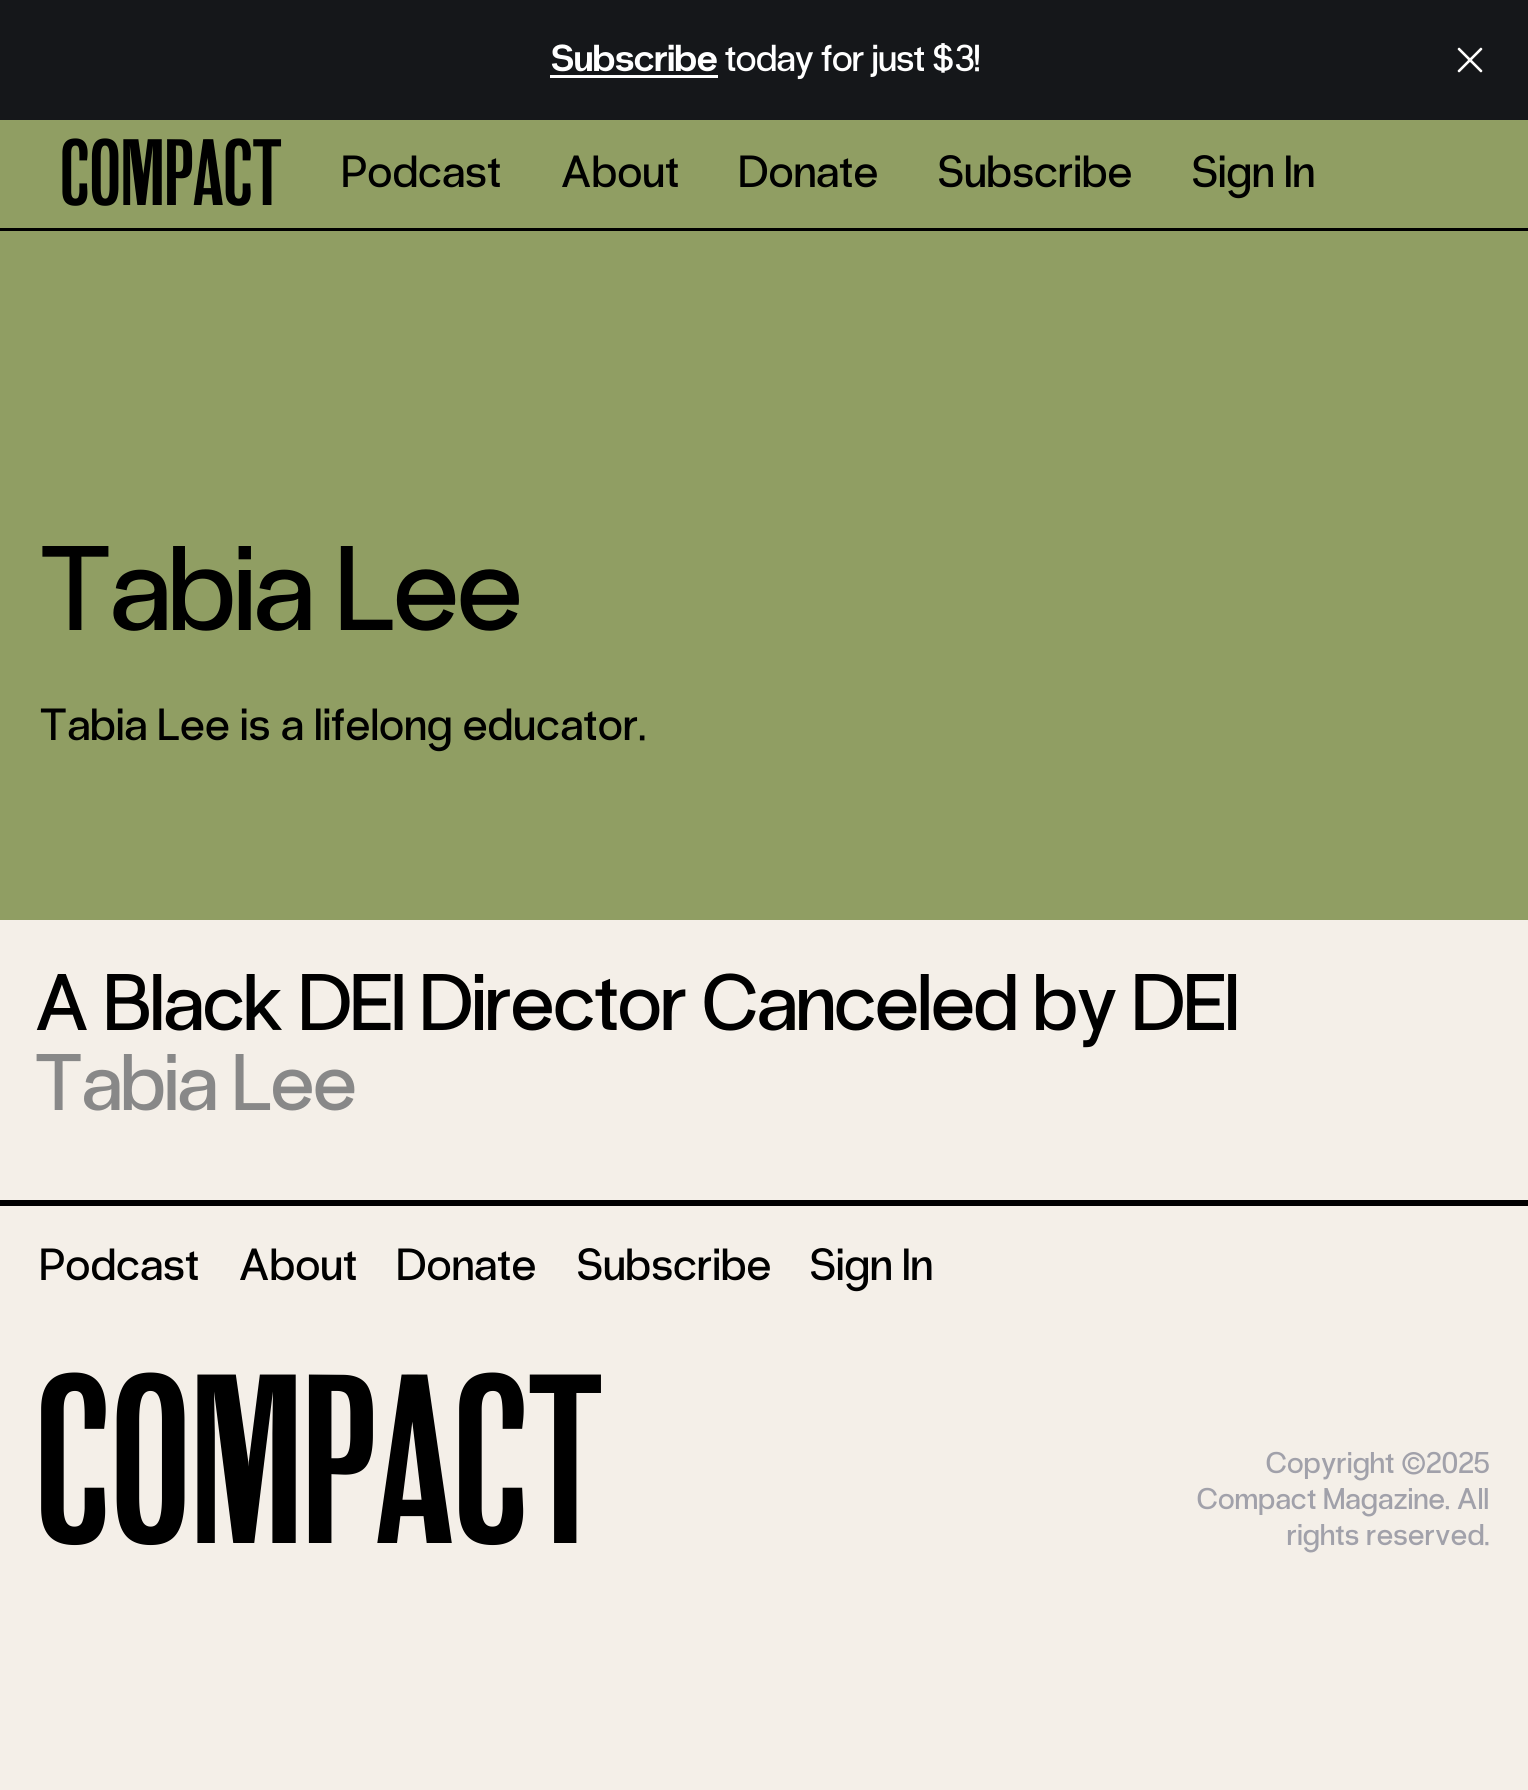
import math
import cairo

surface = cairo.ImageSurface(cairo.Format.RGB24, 1528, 1790)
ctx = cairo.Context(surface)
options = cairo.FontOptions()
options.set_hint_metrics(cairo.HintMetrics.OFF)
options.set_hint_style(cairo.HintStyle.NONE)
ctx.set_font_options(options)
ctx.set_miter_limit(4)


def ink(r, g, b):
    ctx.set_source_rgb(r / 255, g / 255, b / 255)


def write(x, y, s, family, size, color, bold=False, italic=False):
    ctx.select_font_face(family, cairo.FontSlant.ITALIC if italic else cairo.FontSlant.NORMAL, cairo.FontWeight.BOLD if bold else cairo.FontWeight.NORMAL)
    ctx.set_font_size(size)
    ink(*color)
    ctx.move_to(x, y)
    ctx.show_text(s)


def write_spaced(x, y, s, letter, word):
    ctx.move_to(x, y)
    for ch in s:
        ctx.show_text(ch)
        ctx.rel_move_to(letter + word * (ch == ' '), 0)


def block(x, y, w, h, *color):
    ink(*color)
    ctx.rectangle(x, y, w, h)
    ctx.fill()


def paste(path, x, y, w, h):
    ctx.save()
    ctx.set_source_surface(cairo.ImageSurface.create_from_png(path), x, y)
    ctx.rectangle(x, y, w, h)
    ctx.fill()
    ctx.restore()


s1 = dict(family="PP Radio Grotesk", size=37.5, color=(255, 255, 255), bold=True)
s2 = dict(family="PP Radio Grotesk", size=37.5, color=(255, 255, 255))
s3 = dict(family="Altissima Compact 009", size=100, color=(0, 0, 0))
s4 = dict(family="PP Radio Grotesk", size=120, color=(0, 0, 0))
s5 = dict(family="PP Radio Grotesk", size=80, color=(0, 0, 0))
s6 = dict(family="PP Radio Grotesk", size=80, color=(136, 136, 136))
s7 = dict(family="Altissima Compact 009", size=256, color=(0, 0, 0))

ink(244, 239, 232)
ctx.paint()
block(0, 0, 1528, 120, 21, 23, 26)
write(551, 71, "Subscribe", **s1)
write(725, 71, "today for just $3!", **s2)
block(550, 75, 168, 3, 255, 255, 255)
paste("pic1.png", 1457, 47, 26, 26)
block(0, 120, 1528, 800, 144, 158, 99)
block(0, 228, 1528, 3, 0, 0, 0)
write(60, 205, "Compact", **s3)
ctx.select_font_face("PP Radio Grotesk")
ctx.set_font_size(45)
write_spaced(342, 187, "Podcast", 1, 0)
write_spaced(561, 187, "About", 1, 0)
write_spaced(739, 187, "Donate", 1, 0)
write_spaced(938, 187, "Subscribe", 1, 0)
write_spaced(1192, 187, "Sign In", 1, 0)
write(40, 630, "Tabia Lee", **s4)
ctx.set_font_size(45)
write_spaced(40, 740, "Tabia Lee is a lifelong educator.", 1.1, 0)
block(0, 1200, 1528, 6, 0, 0, 0)
write(35, 1030, "A Black DEI Director Canceled by DEI", **s5)
write(35, 1110, "Tabia Lee", **s6)
ctx.set_font_size(45)
ink(0, 0, 0)
write_spaced(40, 1280, "Podcast", 1, 0)
write_spaced(239, 1280, "About", 1, 0)
write_spaced(397, 1280, "Donate", 1, 0)
write_spaced(577, 1280, "Subscribe", 1, 0)
write_spaced(810, 1280, "Sign In", 1, 0)
write(35, 1543, "Compact", **s7)
ctx.select_font_face("PP Radio Grotesk")
ctx.set_font_size(30)
ink(161, 161, 170)
write_spaced(1266, 1473, "Copyright ©2025", 0.75, 0)
write_spaced(1197, 1509, "Compact Magazine. All", 0.75, 0)
write_spaced(1287, 1545, "rights reserved.", 0.75, 0)
surface.write_to_png("screenshot.png")
